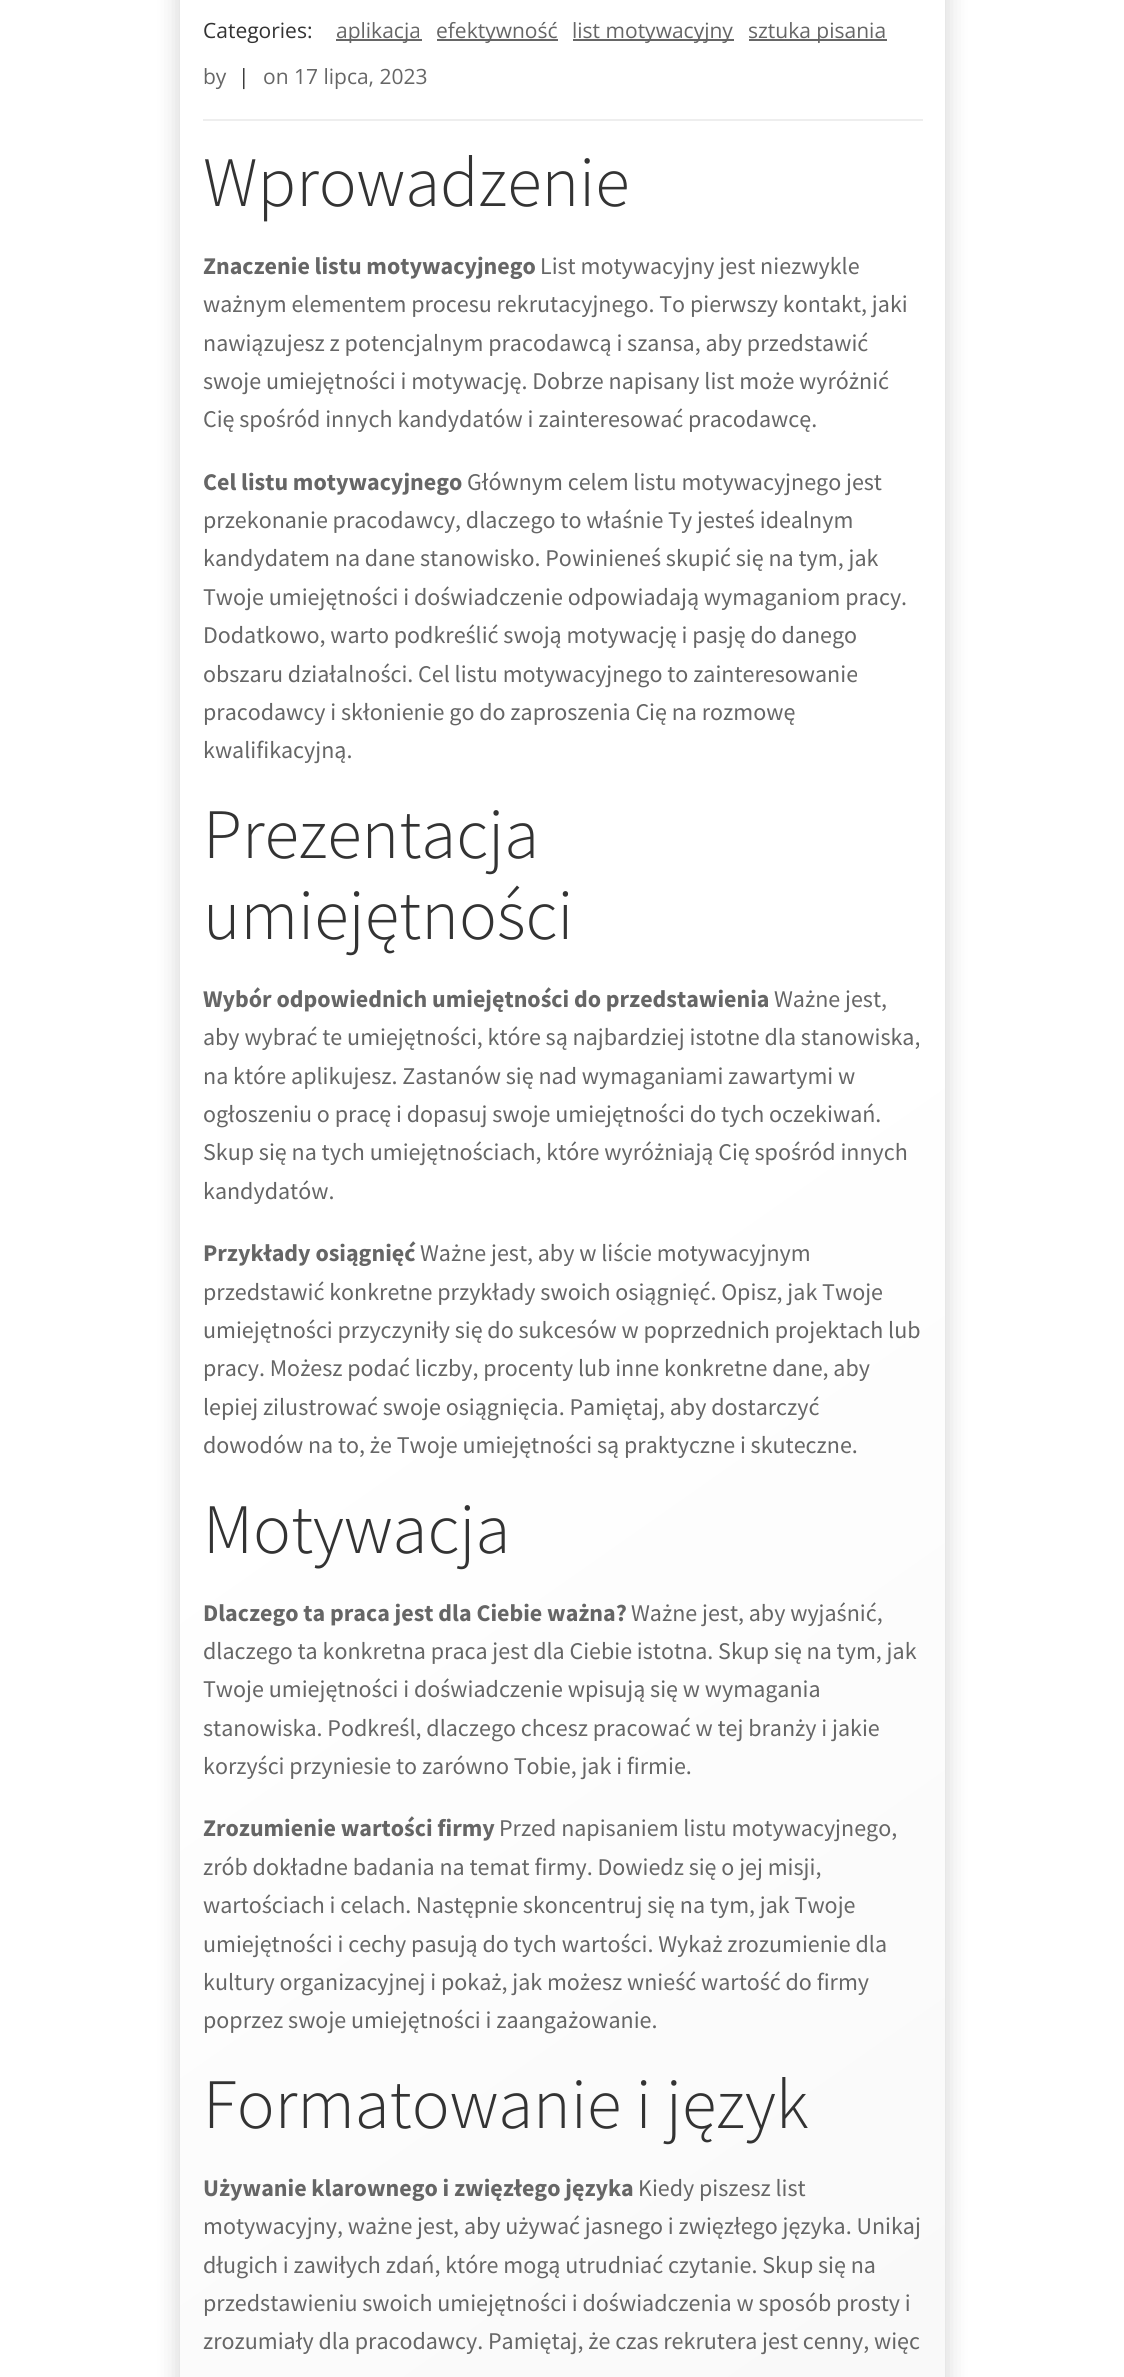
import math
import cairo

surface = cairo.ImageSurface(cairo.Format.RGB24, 1124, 2377)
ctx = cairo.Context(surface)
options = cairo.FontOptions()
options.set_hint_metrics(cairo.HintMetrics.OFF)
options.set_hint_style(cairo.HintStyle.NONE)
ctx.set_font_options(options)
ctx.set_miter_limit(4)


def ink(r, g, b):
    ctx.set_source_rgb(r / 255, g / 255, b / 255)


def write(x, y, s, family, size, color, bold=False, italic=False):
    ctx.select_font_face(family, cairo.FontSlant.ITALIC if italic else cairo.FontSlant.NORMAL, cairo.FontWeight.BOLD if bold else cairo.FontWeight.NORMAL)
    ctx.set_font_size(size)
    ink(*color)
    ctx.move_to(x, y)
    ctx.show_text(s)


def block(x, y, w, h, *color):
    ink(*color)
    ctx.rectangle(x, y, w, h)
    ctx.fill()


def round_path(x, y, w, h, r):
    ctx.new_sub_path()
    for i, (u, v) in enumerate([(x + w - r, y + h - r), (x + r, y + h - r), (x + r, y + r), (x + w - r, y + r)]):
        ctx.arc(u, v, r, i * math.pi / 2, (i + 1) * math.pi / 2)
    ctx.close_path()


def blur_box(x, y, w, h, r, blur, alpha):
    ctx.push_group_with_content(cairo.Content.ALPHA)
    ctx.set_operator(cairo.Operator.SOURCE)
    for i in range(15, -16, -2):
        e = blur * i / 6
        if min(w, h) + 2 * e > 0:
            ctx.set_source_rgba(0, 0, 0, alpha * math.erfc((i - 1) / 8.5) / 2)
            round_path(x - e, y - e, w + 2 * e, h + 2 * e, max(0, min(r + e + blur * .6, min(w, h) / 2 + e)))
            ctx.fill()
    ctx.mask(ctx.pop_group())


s1 = dict(family="Open Sans", size=21, color=(51, 51, 51))
s2 = dict(family="Open Sans", size=21, color=(102, 102, 102))
s3 = dict(family="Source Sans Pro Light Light", size=70.9, color=(51, 51, 51))
s4 = dict(family="Source Sans Pro", size=24, color=(102, 102, 102), bold=True)
s5 = dict(family="Source Sans Pro", size=24, color=(102, 102, 102))

ink(255, 255, 255)
ctx.paint()
ink(0, 0, 0)
blur_box(177, -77, 771, 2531, 44, 11, 0.15)
gradient = cairo.LinearGradient(-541, 43, 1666, 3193)
gradient.add_color_stop_rgba(0.42, 1, 1, 1, 1)
gradient.add_color_stop_rgba(1, 0.953, 0.953, 0.953, 1)
ctx.set_source(gradient)
ctx.rectangle(180, 0, 765, 2377)
ctx.fill()
block(203, 119, 720, 2, 238, 238, 238)
write(203, 38, "Categories:", **s1)
block(336, 39, 86, 2, 102, 102, 102)
write(336, 38, "aplikacja", **s2)
block(437, 39, 121, 2, 102, 102, 102)
write(436, 38, "efektywność", **s2)
block(573, 39, 161, 2, 102, 102, 102)
write(572, 38, "list motywacyjny", **s2)
block(749, 39, 138, 2, 102, 102, 102)
write(748, 38, "sztuka pisania", **s2)
write(203, 84, "by", **s2)
write(238, 84, "|", **s1)
write(263, 84, "on 17 lipca, 2023", **s2)
write(203, 206, "Wprowadzenie", **s3)
write(203, 274, "Znaczenie listu motywacyjnego", **s4)
write(540, 274, "List motywacyjny jest niezwykle", **s5)
write(203, 312, "ważnym elementem procesu rekrutacyjnego. To pierwszy kontakt, jaki", **s5)
write(203, 351, "nawiązujesz z potencjalnym pracodawcą i szansa, aby przedstawić", **s5)
write(203, 389, "swoje umiejętności i motywację. Dobrze napisany list może wyróżnić", **s5)
write(203, 427, "Cię spośród innych kandydatów i zainteresować pracodawcę.", **s5)
write(203, 490, "Cel listu motywacyjnego", **s4)
write(467, 490, "Głównym celem listu motywacyjnego jest", **s5)
write(203, 528, "przekonanie pracodawcy, dlaczego to właśnie Ty jesteś idealnym", **s5)
write(203, 566, "kandydatem na dane stanowisko. Powinieneś skupić się na tym, jak", **s5)
write(203, 605, "Twoje umiejętności i doświadczenie odpowiadają wymaganiom pracy.", **s5)
write(203, 643, "Dodatkowo, warto podkreślić swoją motywację i pasję do danego", **s5)
write(203, 682, "obszaru działalności. Cel listu motywacyjnego to zainteresowanie", **s5)
write(203, 720, "pracodawcy i skłonienie go do zaproszenia Cię na rozmowę", **s5)
write(203, 758, "kwalifikacyjną.", **s5)
write(203, 858, "Prezentacja", **s3)
write(203, 939, "umiejętności", **s3)
write(203, 1007, "Wybór odpowiednich umiejętności do przedstawienia", **s4)
write(774, 1007, "Ważne jest,", **s5)
write(203, 1045, "aby wybrać te umiejętności, które są najbardziej istotne dla stanowiska,", **s5)
write(203, 1084, "na które aplikujesz. Zastanów się nad wymaganiami zawartymi w", **s5)
write(203, 1122, "ogłoszeniu o pracę i dopasuj swoje umiejętności do tych oczekiwań.", **s5)
write(203, 1160, "Skup się na tych umiejętnościach, które wyróżniają Cię spośród innych", **s5)
write(203, 1199, "kandydatów.", **s5)
write(203, 1261, "Przykłady osiągnięć", **s4)
write(420, 1261, "Ważne jest, aby w liście motywacyjnym", **s5)
write(203, 1300, "przedstawić konkretne przykłady swoich osiągnięć. Opisz, jak Twoje", **s5)
write(203, 1338, "umiejętności przyczyniły się do sukcesów w poprzednich projektach lub", **s5)
write(203, 1376, "pracy. Możesz podać liczby, procenty lub inne konkretne dane, aby", **s5)
write(203, 1415, "lepiej zilustrować swoje osiągnięcia. Pamiętaj, aby dostarczyć", **s5)
write(203, 1453, "dowodów na to, że Twoje umiejętności są praktyczne i skuteczne.", **s5)
write(203, 1553, "Motywacja", **s3)
write(203, 1621, "Dlaczego ta praca jest dla Ciebie ważna?", **s4)
write(631, 1621, "Ważne jest, aby wyjaśnić,", **s5)
write(203, 1659, "dlaczego ta konkretna praca jest dla Ciebie istotna. Skup się na tym, jak", **s5)
write(203, 1697, "Twoje umiejętności i doświadczenie wpisują się w wymagania", **s5)
write(203, 1736, "stanowiska. Podkreśl, dlaczego chcesz pracować w tej branży i jakie", **s5)
write(203, 1774, "korzyści przyniesie to zarówno Tobie, jak i firmie.", **s5)
write(203, 1836, "Zrozumienie wartości firmy", **s4)
write(499, 1836, "Przed napisaniem listu motywacyjnego,", **s5)
write(203, 1875, "zrób dokładne badania na temat firmy. Dowiedz się o jej misji,", **s5)
write(203, 1913, "wartościach i celach. Następnie skoncentruj się na tym, jak Twoje", **s5)
write(203, 1952, "umiejętności i cechy pasują do tych wartości. Wykaż zrozumienie dla", **s5)
write(203, 1990, "kultury organizacyjnej i pokaż, jak możesz wnieść wartość do firmy", **s5)
write(203, 2028, "poprzez swoje umiejętności i zaangażowanie.", **s5)
write(203, 2128, "Formatowanie i język", **s3)
write(203, 2196, "Używanie klarownego i zwięzłego języka", **s4)
write(638, 2196, "Kiedy piszesz list", **s5)
write(203, 2234, "motywacyjny, ważne jest, aby używać jasnego i zwięzłego języka. Unikaj", **s5)
write(203, 2273, "długich i zawiłych zdań, które mogą utrudniać czytanie. Skup się na", **s5)
write(203, 2311, "przedstawieniu swoich umiejętności i doświadczenia w sposób prosty i", **s5)
write(203, 2349, "zrozumiały dla pracodawcy. Pamiętaj, że czas rekrutera jest cenny, więc", **s5)
surface.write_to_png("screenshot.png")
